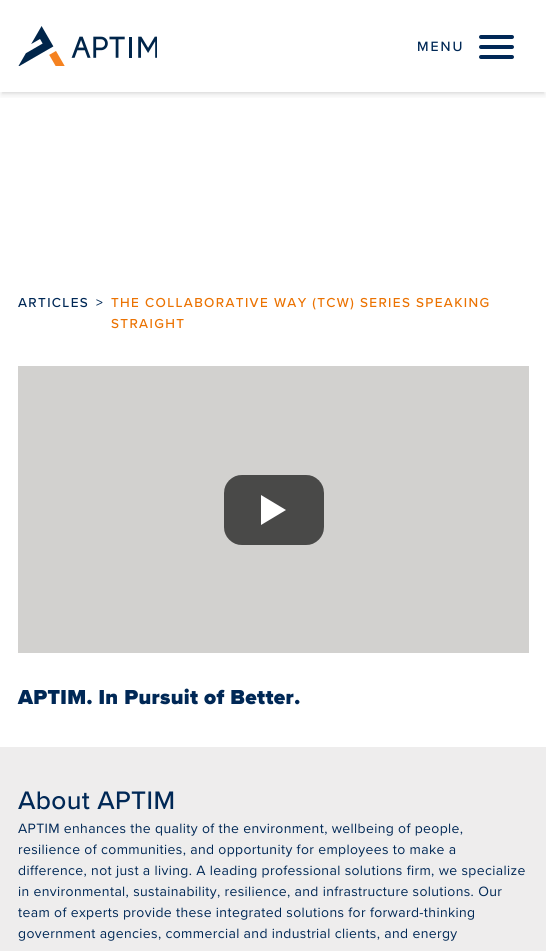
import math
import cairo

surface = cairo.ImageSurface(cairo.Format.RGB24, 546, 951)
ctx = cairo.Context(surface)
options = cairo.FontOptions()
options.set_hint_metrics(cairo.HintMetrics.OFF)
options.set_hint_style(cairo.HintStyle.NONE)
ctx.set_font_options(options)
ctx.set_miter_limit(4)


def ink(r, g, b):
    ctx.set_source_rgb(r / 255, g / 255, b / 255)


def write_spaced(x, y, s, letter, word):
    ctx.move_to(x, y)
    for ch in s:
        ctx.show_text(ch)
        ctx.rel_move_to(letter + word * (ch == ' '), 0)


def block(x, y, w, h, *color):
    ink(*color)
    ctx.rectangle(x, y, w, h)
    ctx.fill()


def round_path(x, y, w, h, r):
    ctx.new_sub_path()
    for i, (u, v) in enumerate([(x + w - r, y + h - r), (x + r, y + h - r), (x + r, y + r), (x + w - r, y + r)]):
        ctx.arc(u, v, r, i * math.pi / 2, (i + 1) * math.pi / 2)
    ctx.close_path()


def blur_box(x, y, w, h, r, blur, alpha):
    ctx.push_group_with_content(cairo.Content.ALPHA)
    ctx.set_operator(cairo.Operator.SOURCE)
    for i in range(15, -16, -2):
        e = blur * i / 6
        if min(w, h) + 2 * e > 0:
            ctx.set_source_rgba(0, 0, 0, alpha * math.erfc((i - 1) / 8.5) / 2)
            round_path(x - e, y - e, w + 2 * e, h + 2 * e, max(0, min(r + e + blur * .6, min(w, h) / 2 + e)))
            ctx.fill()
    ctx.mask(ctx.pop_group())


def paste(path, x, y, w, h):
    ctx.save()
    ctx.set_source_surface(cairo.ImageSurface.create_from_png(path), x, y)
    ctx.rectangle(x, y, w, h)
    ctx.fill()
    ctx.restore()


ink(255, 255, 255)
ctx.paint()
ctx.save()
ctx.rectangle(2, 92, 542, 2)
ctx.clip()
ink(0, 0, 0)
blur_box(2, 4, 542, 88, 0, 2, 0.1)
ctx.restore()
ctx.save()
ctx.rectangle(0, 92, 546, 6)
ctx.clip()
ink(0, 0, 0)
blur_box(1, 5, 544, 90, 0, 3, 0.1)
ctx.restore()
paste("pic1.png", 18, 26, 139, 40)
ctx.select_font_face("Proxima Nova Medium")
ctx.set_font_size(14)
ink(0, 40, 86)
write_spaced(417, 51, "MENU", 2, 0)
round_path(479, 45, 35, 4, 2)
ctx.fill()
round_path(479, 35, 35, 4, 2)
ctx.fill()
round_path(479, 55, 35, 4, 2)
ctx.fill()
ctx.set_font_size(13.5)
write_spaced(18, 307, "ARTICLES", 1.35, 0)
write_spaced(96, 307, ">", 1.35, 0)
ink(235, 114, 1)
write_spaced(111, 307, "THE COLLABORATIVE WAY (TCW) SERIES SPEAKING", 1.35, 0)
write_spaced(111, 328, "STRAIGHT", 1.35, 0)
block(18, 366, 511, 287, 210, 209, 207)
paste("pic2.png", 224, 475, 100, 70)
ctx.select_font_face("Proxima Nova Black")
ctx.set_font_size(21)
ink(0, 40, 86)
write_spaced(18, 704, "APTIM. In Pursuit of Better.", 0.35, 0)
block(0, 747, 546, 204, 238, 237, 237)
ctx.select_font_face("Proxima Nova Medium")
ctx.set_font_size(26.25)
ink(0, 40, 86)
write_spaced(18, 809, "About APTIM", 0.35, 0)
ctx.select_font_face("Proxima Nova")
ctx.set_font_size(14)
write_spaced(18, 833, "APTIM enhances the quality of the environment, wellbeing of people,", 0.35, 0)
write_spaced(18, 854, "resilience of communities, and opportunity for employees to make a", 0.35, 0)
write_spaced(18, 875, "difference, not just a living. A leading professional solutions firm, we specialize", 0.35, 0)
write_spaced(18, 896, "in environmental, sustainability, resilience, and infrastructure solutions. Our", 0.35, 0)
write_spaced(18, 917, "team of experts provide these integrated solutions for forward-thinking", 0.35, 0)
write_spaced(18, 938, "government agencies, commercial and industrial clients, and energy", 0.35, 0)
surface.write_to_png("screenshot.png")
